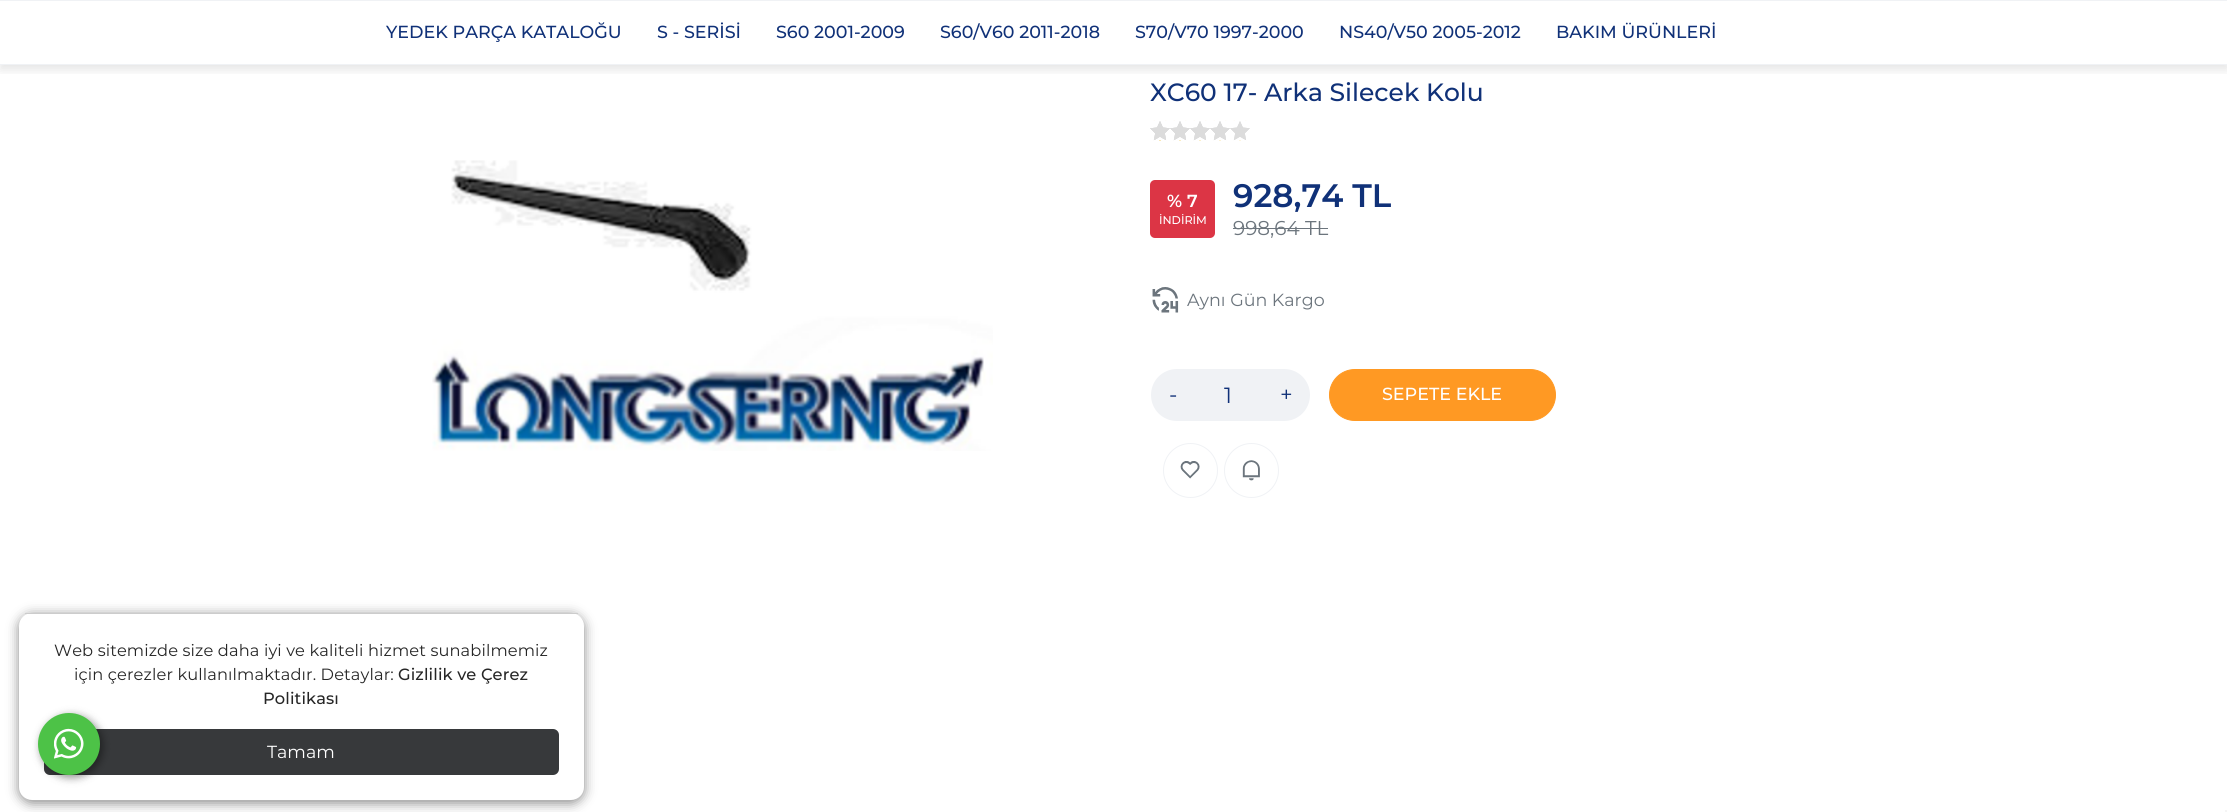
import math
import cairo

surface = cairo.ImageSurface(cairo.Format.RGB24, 2227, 812)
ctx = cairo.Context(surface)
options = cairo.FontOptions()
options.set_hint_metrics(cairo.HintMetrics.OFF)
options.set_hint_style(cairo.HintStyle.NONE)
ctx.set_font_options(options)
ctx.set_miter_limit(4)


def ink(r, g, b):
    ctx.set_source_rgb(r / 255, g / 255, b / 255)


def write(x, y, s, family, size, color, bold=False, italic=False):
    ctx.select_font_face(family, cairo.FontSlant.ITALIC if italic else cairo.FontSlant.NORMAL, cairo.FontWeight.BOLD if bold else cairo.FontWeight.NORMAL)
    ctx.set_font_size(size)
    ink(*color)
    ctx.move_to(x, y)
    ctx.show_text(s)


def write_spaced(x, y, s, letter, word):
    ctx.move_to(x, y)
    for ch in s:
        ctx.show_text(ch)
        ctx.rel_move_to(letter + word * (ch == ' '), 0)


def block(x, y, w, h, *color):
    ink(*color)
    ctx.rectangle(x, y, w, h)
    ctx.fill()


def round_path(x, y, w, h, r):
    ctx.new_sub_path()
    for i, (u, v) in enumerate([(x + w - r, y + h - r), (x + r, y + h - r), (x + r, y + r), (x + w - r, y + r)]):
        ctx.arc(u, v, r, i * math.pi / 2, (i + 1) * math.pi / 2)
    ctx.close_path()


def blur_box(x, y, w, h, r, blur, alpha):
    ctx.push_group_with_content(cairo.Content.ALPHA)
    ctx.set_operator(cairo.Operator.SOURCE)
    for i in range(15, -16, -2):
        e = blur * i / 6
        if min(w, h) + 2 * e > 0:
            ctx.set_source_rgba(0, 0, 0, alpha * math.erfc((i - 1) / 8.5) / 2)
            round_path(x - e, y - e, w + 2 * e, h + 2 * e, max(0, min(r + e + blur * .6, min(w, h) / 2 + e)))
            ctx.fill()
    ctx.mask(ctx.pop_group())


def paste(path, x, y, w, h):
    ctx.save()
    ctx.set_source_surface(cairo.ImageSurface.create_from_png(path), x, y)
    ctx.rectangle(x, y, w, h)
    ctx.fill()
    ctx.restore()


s1 = dict(family="Montserrat Medium", size=17.5, color=(16, 49, 120))
s2 = dict(family="Montserrat", size=17.5, color=(255, 255, 255))
s3 = dict(family="Montserrat Medium", size=25, color=(16, 49, 120))
s4 = dict(family="Montserrat SemiBold", size=17.5, color=(255, 255, 255))
s5 = dict(family="Montserrat Medium", size=11.25, color=(255, 255, 255))
s6 = dict(family="Montserrat SemiBold", size=32.5, color=(16, 49, 120))
s7 = dict(family="Montserrat", size=20, color=(108, 117, 125))
s8 = dict(family="Montserrat", size=17.5, color=(108, 117, 125))
s9 = dict(family="Montserrat", size=22, color=(16, 49, 120))
s10 = dict(family="Montserrat Medium", size=17.5, color=(255, 255, 255))

ink(255, 255, 255)
ctx.paint()
ctx.save()
ctx.rectangle(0, 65, 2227, 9)
ctx.clip()
ink(0, 0, 0)
blur_box(0, 5, 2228, 65, 0, 5, 0.1)
ctx.restore()
block(0, 0, 2227, 1, 240, 242, 245)
block(0, 64, 2227, 1, 240, 242, 245)
write(386, 38, "YEDEK PARÇA KATALOĞU", **s1)
write(657, 38, "S - SERİSİ", **s1)
write(776, 38, "S60 2001-2009", **s1)
write(940, 38, "S60/V60 2011-2018", **s1)
write(1135, 38, "S70/V70 1997-2000", **s1)
write(1339, 38, "NS40/V50 2005-2012", **s1)
write(1556, 38, "BAKIM ÜRÜNLERİ", **s1)
ink(136, 136, 136)
blur_box(19, 615, 565, 188, 13, 6, 1)
ink(255, 255, 255)
round_path(19, 613, 565, 187, 13)
ctx.fill()
block(25, 613, 553, 1, 204, 204, 204)
ctx.select_font_face("Montserrat")
ctx.set_font_size(16.25)
ink(38, 38, 38)
write_spaced(54, 656, "Web sitemizde size daha iyi ve kaliteli hizmet sunabilmemiz", 0.12, 0)
write_spaced(74, 680, "için çerezler kullanılmaktadır. Detaylar:", 0.12, 0)
ctx.select_font_face("Montserrat Medium")
write_spaced(398, 680, "Gizlilik ve Çerez", 0.12, 0)
write_spaced(263, 704, "Politikası", 0.12, 0)
ink(55, 57, 59)
round_path(44, 729, 515, 46, 6)
ctx.fill()
write(267, 758, "Tamam", **s2)
paste("pic1.png", 432, 160, 561, 291)
write(1150, 101, "XC60 17- Arka Silecek Kolu", **s3)
paste("pic2.png", 1150, 120, 100, 21)
paste("pic3.png", 1150, 121, 100, 20)
paste("pic4.png", 1150, 121, 80, 20)
paste("pic6.png", 1159, 140, 42, 1)
paste("pic7.png", 1159, 140, 22, 1)
paste("pic5.png", 1155, 138, 8, 3)
ink(220, 53, 69)
round_path(1150, 180, 65, 58, 5)
ctx.fill()
write(1167, 207, "% 7", **s4)
write(1159, 224, "İNDİRİM", **s5)
write(1233, 207, "928,74 TL", **s6)
write(1233, 235, "998,64 TL", **s7)
block(1233, 228, 95, 1, 108, 117, 125)
paste("pic8.png", 1152, 287, 27, 26)
write(1187, 306, "Aynı Gün Kargo", **s8)
ink(240, 242, 245)
ctx.new_path()
ctx.move_to(1177, 369)
ctx.line_to(1195, 369)
ctx.line_to(1195, 421)
ctx.line_to(1177, 421)
ctx.curve_to(1162.5, 421, 1151, 409.5, 1151, 395)
ctx.curve_to(1151, 380.5, 1162.5, 369, 1177, 369)
ctx.close_path()
ctx.fill()
write(1169, 402, "-", **s9)
block(1195, 369, 68, 52, 240, 242, 245)
write(1224, 403, "1", **s9)
ink(240, 242, 245)
ctx.new_path()
ctx.move_to(1263, 369)
ctx.line_to(1284, 369)
ctx.curve_to(1298.5, 369, 1310, 380.5, 1310, 395)
ctx.curve_to(1310, 409.5, 1298.5, 421, 1284, 421)
ctx.line_to(1263, 421)
ctx.close_path()
ctx.fill()
write(1280, 402, "+", **s9)
ink(255, 153, 35)
round_path(1329.5, 369.5, 226, 51, 25.5)
ctx.fill_preserve()
ctx.set_line_width(1)
ctx.stroke()
write(1382, 400, "SEPETE EKLE", **s10)
ctx.new_path()
ctx.arc(1190.5, 470.5, 27, 0, 2 * math.pi)
ink(240, 242, 245)
ctx.stroke()
paste("pic9.png", 1180, 461, 20, 18)
ctx.arc(1251.5, 470.5, 27, 0, 2 * math.pi)
ctx.stroke()
paste("pic10.png", 1242, 460, 18, 21)
ink(0, 0, 0)
blur_box(40, 715, 63, 63, 31.5, 4, 0.4)
ink(77, 194, 71)
ctx.arc(69, 744, 31, 0, 2 * math.pi)
ctx.fill()
paste("pic11.png", 54, 728, 30, 31)
block(2225, 810, 2, 2, 245, 245, 245)
surface.write_to_png("screenshot.png")
